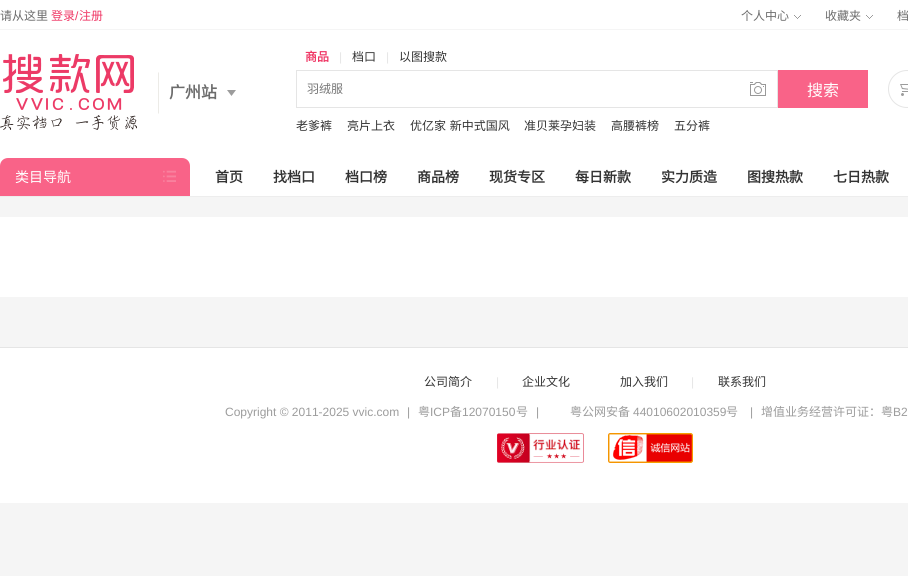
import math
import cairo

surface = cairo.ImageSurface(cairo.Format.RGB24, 908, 576)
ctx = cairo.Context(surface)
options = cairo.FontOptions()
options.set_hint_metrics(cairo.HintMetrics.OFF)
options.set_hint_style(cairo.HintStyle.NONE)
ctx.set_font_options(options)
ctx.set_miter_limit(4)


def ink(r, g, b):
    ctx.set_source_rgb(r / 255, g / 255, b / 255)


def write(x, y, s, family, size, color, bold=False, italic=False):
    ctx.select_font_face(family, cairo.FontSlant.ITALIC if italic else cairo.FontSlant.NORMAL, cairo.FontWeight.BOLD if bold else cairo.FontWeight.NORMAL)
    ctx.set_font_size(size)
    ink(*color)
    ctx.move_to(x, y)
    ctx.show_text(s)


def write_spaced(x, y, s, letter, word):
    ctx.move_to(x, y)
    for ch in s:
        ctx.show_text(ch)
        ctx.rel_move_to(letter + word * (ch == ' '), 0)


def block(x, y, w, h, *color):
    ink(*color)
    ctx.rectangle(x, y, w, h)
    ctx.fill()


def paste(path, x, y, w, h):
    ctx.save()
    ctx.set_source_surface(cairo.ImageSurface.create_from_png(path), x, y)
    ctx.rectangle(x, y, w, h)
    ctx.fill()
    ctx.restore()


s1 = dict(family="Noto Sans CJK SC", size=12, color=(108, 108, 108))
s2 = dict(family="Noto Sans CJK SC", size=12, color=(239, 54, 100))
s3 = dict(family="Liberation Sans", size=12, color=(239, 54, 100))
s4 = dict(family="Noto Sans CJK SC", size=16, color=(108, 108, 108), bold=True)
s5 = dict(family="Noto Sans CJK SC", size=12, color=(239, 54, 100), bold=True)
s6 = dict(family="Liberation Sans", size=12, color=(229, 229, 229))
s7 = dict(family="Noto Sans CJK SC", size=12, color=(51, 51, 51))
s8 = dict(family="Noto Sans CJK SC", size=12, color=(117, 117, 117))
s9 = dict(family="Noto Sans CJK SC", size=16, color=(255, 255, 255))
s10 = dict(family="Noto Sans CJK SC", size=14, color=(255, 255, 255))
s11 = dict(family="Noto Sans CJK SC", size=14, color=(51, 51, 51), bold=True)
s12 = dict(family="Liberation Sans", size=12, color=(156, 156, 156))
s13 = dict(family="Noto Sans CJK SC", size=12, color=(156, 156, 156))

ink(245, 245, 245)
ctx.paint()
block(0, 0, 908, 29, 255, 255, 255)
write(0, 20, "请从这里", **s1)
write(51, 20, "登录", **s2)
write(75, 20, "/", **s3)
write(79, 20, "注册", **s2)
write(741, 20, "个人中心", **s1)
paste("pic1.png", 794, 15, 7, 4)
write(825, 20, "收藏夹", **s1)
paste("pic1.png", 866, 15, 7, 4)
write(897, 20, "档", **s1)
block(0, 30, 908, 166, 255, 255, 255)
paste("pic2.png", 0, 54, 137, 76)
ink(236, 235, 231)
ctx.new_path()
ctx.move_to(158, 114)
ctx.line_to(158, 72)
ctx.line_to(159, 73)
ctx.line_to(159, 113)
ctx.close_path()
ctx.fill()
write(169, 98, "广州站", **s4)
paste("pic3.png", 227, 90, 9, 6)
write(305, 61, "商品", **s5)
write(339, 61, "|", **s6)
write(352, 61, "档口", **s7)
write(386, 61, "|", **s6)
write(399, 61, "以图搜款", **s7)
ctx.rectangle(296.5, 70.5, 481, 37)
ink(229, 229, 229)
ctx.set_line_width(1)
ctx.stroke()
write(307, 93, "羽绒服", **s8)
paste("pic4.png", 750, 82, 16, 14)
block(778, 70, 90, 38, 249, 99, 136)
write(807, 96, "搜索", **s9)
ctx.new_path()
ctx.arc(907, 89, 18.5, 0, 2 * math.pi)
ink(229, 229, 229)
ctx.stroke()
paste("pic5.png", 900, 84, 8, 12)
write(296, 130, "老爹裤", **s7)
write(347, 130, "亮片上衣", **s7)
write_spaced(410, 130, "优亿家 新中式国风", 0, 1)
write(524, 130, "准贝莱孕妇装", **s7)
write(611, 130, "高腰裤榜", **s7)
write(674, 130, "五分裤", **s7)
block(0, 196, 908, 1, 237, 237, 237)
ink(249, 99, 136)
ctx.new_path()
ctx.move_to(8, 158)
ctx.line_to(182, 158)
ctx.curve_to(186.5, 158, 190, 161.5, 190, 166)
ctx.line_to(190, 196)
ctx.line_to(0, 196)
ctx.line_to(0, 166)
ctx.curve_to(0, 161.5, 3.5, 158, 8, 158)
ctx.close_path()
ctx.fill()
write(15, 182, "类目导航", **s10)
paste("pic6.png", 163, 170, 13, 12)
write(215, 182, "首页", **s11)
write(273, 182, "找档口", **s11)
write(345, 182, "档口榜", **s11)
write(417, 182, "商品榜", **s11)
write(489, 182, "现货专区", **s11)
write(575, 182, "每日新款", **s11)
write(661, 182, "实力质造", **s11)
write(747, 182, "图搜热款", **s11)
write(833, 182, "七日热款", **s11)
block(0, 217, 908, 80, 255, 255, 255)
block(0, 348, 908, 155, 255, 255, 255)
block(0, 347, 908, 1, 229, 229, 229)
write(424, 386, "公司简介", **s7)
write(496, 386, "|", **s6)
write(522, 386, "企业文化", **s7)
write(620, 386, "加入我们", **s7)
write(691, 386, "|", **s6)
write(718, 386, "联系我们", **s7)
write(225, 416, "Copyright © 2011-2025 vvic.com", **s12)
write(407, 416, "|", **s12)
write(418, 416, "粤", **s13)
write(430, 416, "ICP", **s12)
write(450, 416, "备", **s13)
write(462, 416, "12070150", **s12)
write(516, 416, "号", **s13)
write(536, 416, "|", **s12)
write(570, 416, "粤公网安备", **s13)
write(633, 416, "44010602010359", **s12)
write(726, 416, "号", **s13)
write(750, 416, "|", **s12)
write(761, 416, "增值业务经营许可证：粤", **s13)
write(893, 416, "B2", **s12)
paste("pic7.png", 497, 433, 87, 30)
paste("pic8.png", 608, 433, 85, 30)
surface.write_to_png("screenshot.png")
